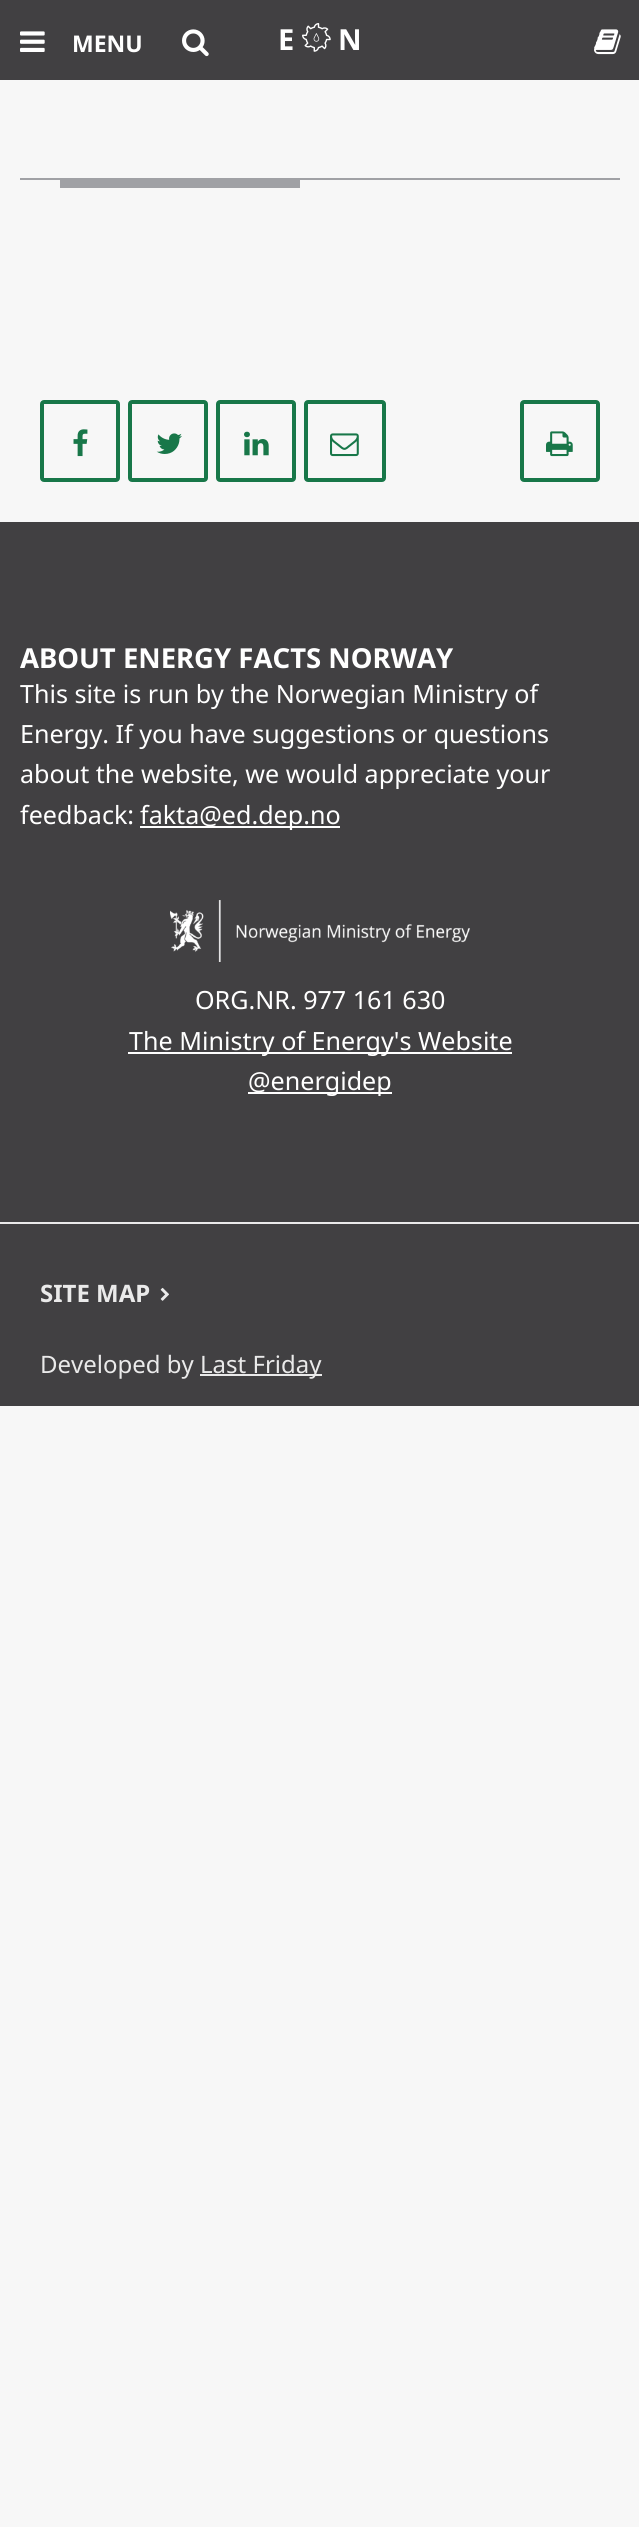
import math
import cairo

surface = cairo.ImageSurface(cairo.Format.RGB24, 639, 2527)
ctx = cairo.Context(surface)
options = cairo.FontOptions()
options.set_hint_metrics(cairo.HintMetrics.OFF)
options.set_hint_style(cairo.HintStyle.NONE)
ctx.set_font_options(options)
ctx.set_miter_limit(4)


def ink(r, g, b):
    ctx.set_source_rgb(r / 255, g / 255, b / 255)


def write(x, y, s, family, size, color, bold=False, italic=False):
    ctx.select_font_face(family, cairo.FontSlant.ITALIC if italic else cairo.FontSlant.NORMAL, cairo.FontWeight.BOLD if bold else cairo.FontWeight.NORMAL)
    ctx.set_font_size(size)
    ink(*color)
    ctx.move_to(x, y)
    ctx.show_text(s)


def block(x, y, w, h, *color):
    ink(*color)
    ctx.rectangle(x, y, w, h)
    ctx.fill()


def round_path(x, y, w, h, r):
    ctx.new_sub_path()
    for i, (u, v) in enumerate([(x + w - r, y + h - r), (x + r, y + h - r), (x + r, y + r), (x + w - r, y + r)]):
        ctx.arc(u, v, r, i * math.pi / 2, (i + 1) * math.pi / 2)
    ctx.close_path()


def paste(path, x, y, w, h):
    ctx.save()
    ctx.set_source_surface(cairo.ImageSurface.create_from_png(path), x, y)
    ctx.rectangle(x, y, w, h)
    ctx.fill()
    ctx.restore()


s1 = dict(family="Noto Sans", size=23, color=(255, 255, 255), bold=True)
s2 = dict(family="Noto Sans", size=29, color=(255, 255, 255), bold=True)
s3 = dict(family="Noto Sans", size=27.5, color=(255, 255, 255), bold=True)
s4 = dict(family="Noto Sans", size=25.1, color=(255, 255, 255))
s5 = dict(family="Noto Sans", size=24, color=(234, 234, 234), bold=True)
s6 = dict(family="Noto Sans", size=24, color=(234, 234, 234))

ink(247, 247, 247)
ctx.paint()
block(0, 0, 639, 80, 65, 64, 66)
paste("pic1.png", 20, 31, 25, 21)
write(72, 52, "MENU", **s1)
paste("pic2.png", 182, 29, 27, 28)
write(278, 50, "E", **s2)
paste("pic3.png", 302, 23, 29, 29)
write(338, 50, "N", **s2)
paste("pic4.png", 594, 29, 27, 26)
block(20, 178, 600, 2, 160, 161, 165)
block(60, 180, 240, 8, 160, 161, 165)
round_path(42, 402, 76, 78, 2)
ink(24, 119, 73)
ctx.set_line_width(4)
ctx.stroke()
paste("pic5.png", 73, 429, 15, 28)
round_path(130, 402, 76, 78, 2)
ctx.stroke()
paste("pic6.png", 156, 433, 26, 21)
round_path(218, 402, 76, 78, 2)
ctx.stroke()
paste("pic7.png", 244, 431, 25, 25)
round_path(306, 402, 78, 78, 2)
ctx.stroke()
paste("pic8.png", 330, 433, 29, 24)
round_path(522, 402, 76, 78, 2)
ctx.stroke()
paste("pic9.png", 546, 431, 27, 26)
block(0, 522, 639, 884, 65, 64, 66)
write(20, 668, "ABOUT ENERGY FACTS NORWAY", **s3)
write(20, 703, "This site is run by the Norwegian Ministry of", **s4)
write(20, 743, "Energy. If you have suggestions or questions", **s4)
write(20, 783, "about the website, we would appreciate your", **s4)
write(20, 824, "feedback:", **s4)
block(140, 826, 200, 2, 255, 255, 255)
write(140, 824, "fakta@ed.dep.no", **s4)
paste("pic10.png", 170, 900, 300, 62)
write(195, 1009, "ORG.NR. 977 161 630", **s4)
block(128, 1052, 384, 2, 255, 255, 255)
write(129, 1050, "The Ministry of Energy's Website", **s4)
block(248, 1092, 144, 2, 255, 255, 255)
write(248, 1090, "@energidep", **s4)
block(0, 1222, 639, 2, 234, 234, 234)
write(40, 1302, "SITE MAP", **s5)
paste("pic11.png", 160, 1287, 9, 14)
write(40, 1373, "Developed by", **s6)
block(200, 1374, 122, 2, 234, 234, 234)
write(200, 1373, "Last Friday", **s6)
surface.write_to_png("screenshot.png")
